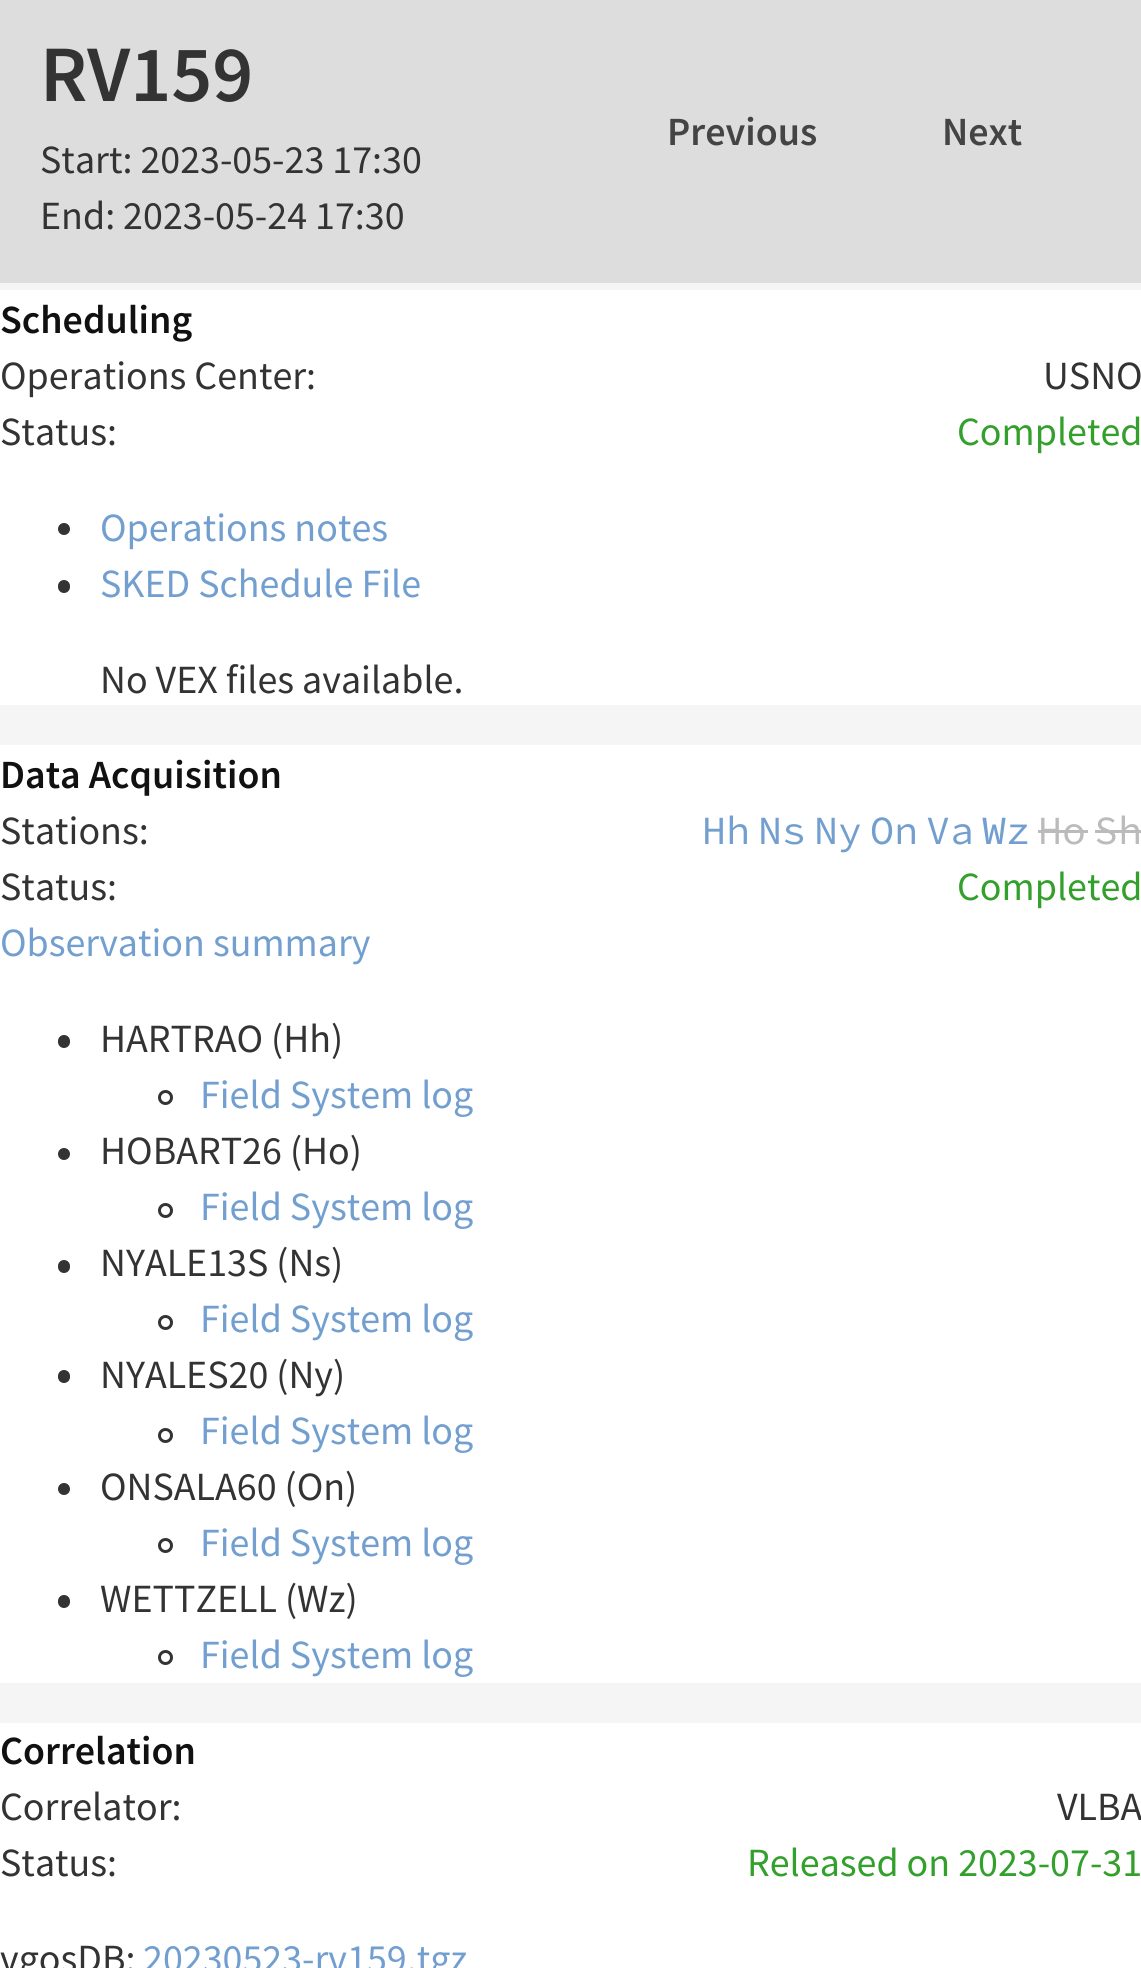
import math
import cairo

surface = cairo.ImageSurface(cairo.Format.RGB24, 1141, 1968)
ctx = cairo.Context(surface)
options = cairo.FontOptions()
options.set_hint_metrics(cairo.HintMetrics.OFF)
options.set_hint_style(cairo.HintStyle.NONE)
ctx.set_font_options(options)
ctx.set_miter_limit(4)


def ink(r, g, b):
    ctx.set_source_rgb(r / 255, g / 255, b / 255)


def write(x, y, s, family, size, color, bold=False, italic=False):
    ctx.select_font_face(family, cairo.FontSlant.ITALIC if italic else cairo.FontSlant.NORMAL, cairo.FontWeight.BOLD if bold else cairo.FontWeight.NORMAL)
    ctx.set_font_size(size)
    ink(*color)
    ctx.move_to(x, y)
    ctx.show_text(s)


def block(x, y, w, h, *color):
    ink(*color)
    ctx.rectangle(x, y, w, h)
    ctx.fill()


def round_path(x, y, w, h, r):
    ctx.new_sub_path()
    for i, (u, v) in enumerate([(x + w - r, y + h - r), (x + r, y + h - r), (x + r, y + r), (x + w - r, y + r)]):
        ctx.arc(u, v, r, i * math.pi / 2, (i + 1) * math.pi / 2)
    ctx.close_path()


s1 = dict(family="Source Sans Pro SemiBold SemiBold", size=80, color=(51, 51, 51))
s2 = dict(family="Source Sans Pro", size=40, color=(51, 51, 51))
s3 = dict(family="Source Sans Pro SemiBold SemiBold", size=40, color=(68, 68, 68))
s4 = dict(family="Source Sans Pro SemiBold SemiBold", size=40, color=(17, 17, 17))
s5 = dict(family="Source Sans Pro", size=40, color=(51, 160, 44))
s6 = dict(family="Source Sans Pro", size=40, color=(114, 159, 207))
s7 = dict(family="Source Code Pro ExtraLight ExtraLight", size=40, color=(114, 159, 207))
s8 = dict(family="Source Code Pro ExtraLight ExtraLight", size=40, color=(187, 187, 187))

ink(245, 245, 245)
ctx.paint()
block(0, 0, 1141, 283, 221, 221, 221)
write(40, 101, "RV159", **s1)
write(40, 173, "Start: 2023-05-23 17:30", **s2)
write(40, 229, "End: 2023-05-24 17:30", **s2)
write(667, 145, "Previous", **s3)
write(942, 145, "Next", **s3)
block(0, 290, 1141, 415, 255, 255, 255)
write(0, 333, "Scheduling", **s4)
write(0, 389, "Operations Center:", **s2)
write(1043, 389, "USNO", **s2)
write(0, 445, "Status:", **s2)
write(957, 445, "Completed", **s5)
ink(51, 51, 51)
ctx.new_path()
ctx.arc(64, 529, 6, 0, 2 * math.pi)
ctx.fill()
write(100, 541, "Operations notes", **s6)
ink(51, 51, 51)
round_path(58, 580, 12, 13, 6)
ctx.fill()
write(100, 597, "SKED Schedule File", **s6)
write(100, 693, "No VEX files available.", **s2)
block(0, 745, 1141, 938, 255, 255, 255)
write(0, 788, "Data Acquisition", **s4)
write(0, 844, "Stations:", **s2)
write(702, 844, "Hh", **s7)
write(758, 844, "Ns", **s7)
write(814, 844, "Ny", **s7)
write(870, 844, "On", **s7)
write(926, 844, "Va", **s7)
write(982, 844, "Wz", **s7)
write(1038, 844, "Ho", **s8)
block(1038, 830, 50, 3, 187, 187, 187)
write(1094, 844, "Sh", **s8)
block(1095, 830, 46, 3, 187, 187, 187)
write(0, 900, "Status:", **s2)
write(957, 900, "Completed", **s5)
write(0, 956, "Observation summary", **s6)
ink(51, 51, 51)
round_path(58, 1035, 12, 13, 6)
ctx.fill()
write(100, 1052, "HARTRAO (Hh)", **s2)
ctx.new_path()
ctx.arc(165.5, 1097.5, 6, 0, 2 * math.pi)
ctx.set_line_width(3)
ctx.stroke()
write(200, 1108, "Field System log", **s6)
ink(51, 51, 51)
ctx.new_path()
ctx.arc(64, 1154, 6, 0, 2 * math.pi)
ctx.fill()
write(100, 1164, "HOBART26 (Ho)", **s2)
ctx.new_path()
ctx.arc(165.5, 1210.5, 6, 0, 2 * math.pi)
ctx.stroke()
write(200, 1220, "Field System log", **s6)
ink(51, 51, 51)
round_path(58, 1260, 12, 13, 6)
ctx.fill()
write(100, 1276, "NYALE13S (Ns)", **s2)
ctx.new_path()
ctx.arc(165.5, 1322.5, 6, 0, 2 * math.pi)
ctx.stroke()
write(200, 1332, "Field System log", **s6)
ink(51, 51, 51)
round_path(58, 1370, 12, 13, 6)
ctx.fill()
write(100, 1388, "NYALES20 (Ny)", **s2)
ctx.new_path()
ctx.arc(165.5, 1435.5, 6, 0, 2 * math.pi)
ctx.stroke()
write(200, 1444, "Field System log", **s6)
ink(51, 51, 51)
ctx.new_path()
ctx.arc(64, 1489, 6, 0, 2 * math.pi)
ctx.fill()
write(100, 1500, "ONSALA60 (On)", **s2)
ctx.new_path()
ctx.arc(165.5, 1545.5, 6, 0, 2 * math.pi)
ctx.stroke()
write(200, 1556, "Field System log", **s6)
ink(51, 51, 51)
round_path(58, 1595, 12, 13, 6)
ctx.fill()
write(100, 1612, "WETTZELL (Wz)", **s2)
ctx.new_path()
ctx.arc(165.5, 1657.5, 6, 0, 2 * math.pi)
ctx.stroke()
write(200, 1668, "Field System log", **s6)
block(0, 1723, 1141, 245, 255, 255, 255)
write(0, 1764, "Correlation", **s4)
write(0, 1820, "Correlator:", **s2)
write(1057, 1820, "VLBA", **s2)
write(0, 1876, "Status:", **s2)
write(747, 1876, "Released on 2023-07-31", **s5)
write(0, 1972, "vgosDB:", **s2)
write(143, 1972, "20230523-rv159.tgz", **s6)
surface.write_to_png("screenshot.png")
